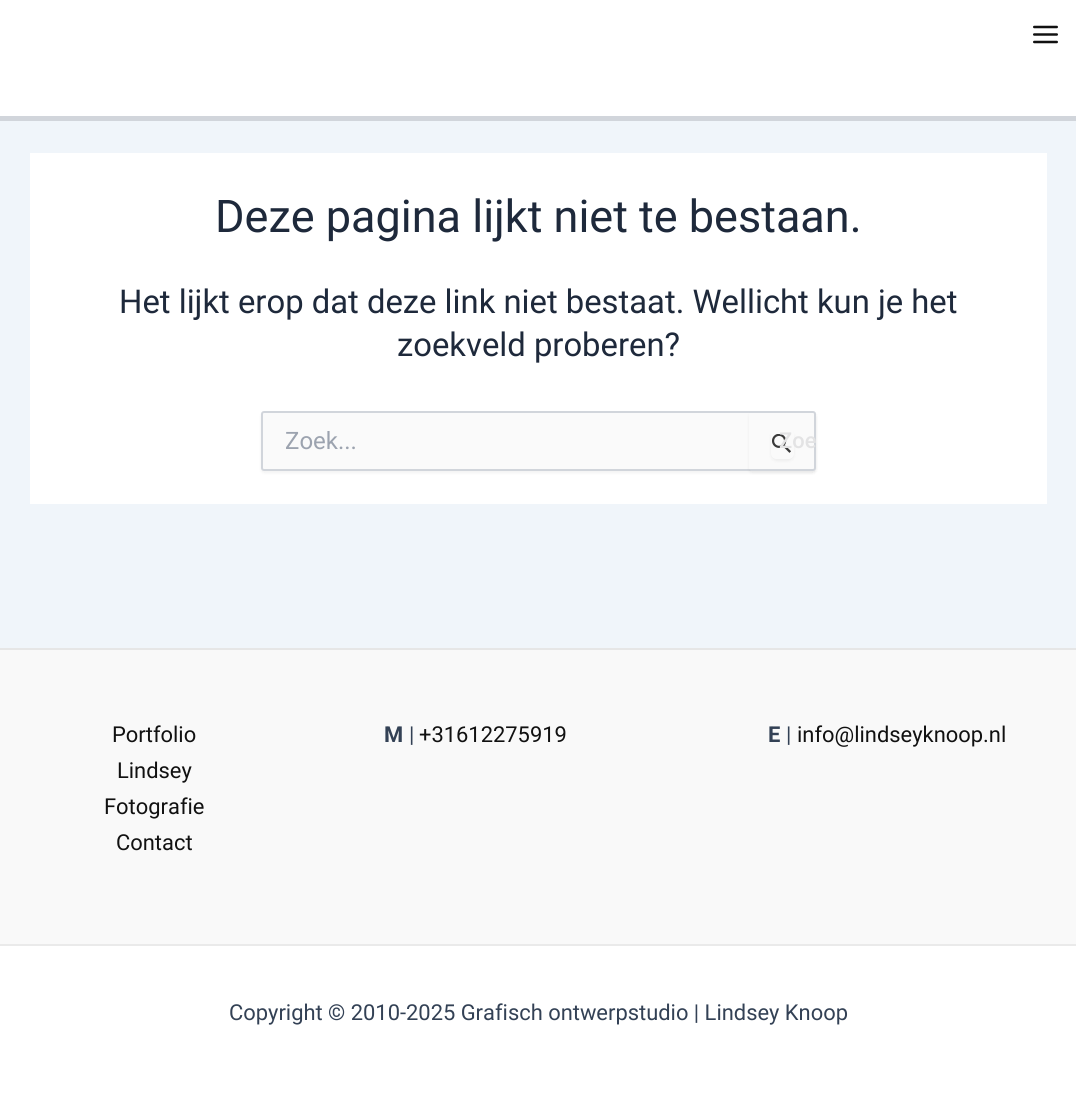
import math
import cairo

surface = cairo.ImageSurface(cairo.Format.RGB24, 1076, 1094)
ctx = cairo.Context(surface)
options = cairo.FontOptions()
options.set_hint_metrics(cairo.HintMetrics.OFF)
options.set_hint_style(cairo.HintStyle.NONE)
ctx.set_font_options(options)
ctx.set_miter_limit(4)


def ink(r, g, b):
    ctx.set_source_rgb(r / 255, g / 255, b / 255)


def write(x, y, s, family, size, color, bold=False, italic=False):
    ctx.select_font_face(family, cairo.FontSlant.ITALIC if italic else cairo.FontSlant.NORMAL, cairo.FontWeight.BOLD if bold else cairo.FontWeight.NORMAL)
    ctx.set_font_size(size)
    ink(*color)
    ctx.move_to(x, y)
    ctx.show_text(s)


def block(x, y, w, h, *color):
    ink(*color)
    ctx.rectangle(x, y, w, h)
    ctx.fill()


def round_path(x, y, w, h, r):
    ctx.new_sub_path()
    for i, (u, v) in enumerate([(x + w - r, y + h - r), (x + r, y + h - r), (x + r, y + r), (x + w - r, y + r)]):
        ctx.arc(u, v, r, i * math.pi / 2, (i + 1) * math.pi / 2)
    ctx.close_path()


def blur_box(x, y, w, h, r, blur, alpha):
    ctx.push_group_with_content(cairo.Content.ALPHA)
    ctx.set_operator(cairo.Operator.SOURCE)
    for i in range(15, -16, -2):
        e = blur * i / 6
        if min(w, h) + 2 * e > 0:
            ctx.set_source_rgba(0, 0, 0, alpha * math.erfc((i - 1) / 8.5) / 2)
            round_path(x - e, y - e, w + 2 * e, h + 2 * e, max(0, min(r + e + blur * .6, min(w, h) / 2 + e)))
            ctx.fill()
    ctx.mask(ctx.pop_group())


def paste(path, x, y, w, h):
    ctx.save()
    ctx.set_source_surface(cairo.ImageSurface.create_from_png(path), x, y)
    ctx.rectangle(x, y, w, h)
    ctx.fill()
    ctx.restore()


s1 = dict(family="Roboto", size=45, color=(30, 41, 59))
s2 = dict(family="Roboto", size=32.8, color=(30, 41, 59))
s3 = dict(family="Roboto", size=24, color=(156, 163, 175))
s4 = dict(family="Roboto Medium", size=21.9, color=(227, 227, 228))
s5 = dict(family="Roboto", size=21.9, color=(17, 17, 17))
s6 = dict(family="Roboto", size=21.9, color=(51, 65, 85), bold=True)
s7 = dict(family="Roboto", size=21.9, color=(51, 65, 85))

ink(240, 245, 250)
ctx.paint()
block(0, 0, 1076, 116, 255, 255, 255)
block(0, 116, 1076, 5, 209, 213, 219)
paste("pic1.png", 1033, 25, 25, 19)
block(30, 153, 1017, 351, 255, 255, 255)
write(215, 232, "Deze pagina lijkt niet te bestaan.", **s1)
write(119, 313, "Het lijkt erop dat deze link niet bestaat. Wellicht kun je het", **s2)
write(397, 356, "zoekveld proberen?", **s2)
ink(0, 0, 0)
blur_box(261, 413, 555, 60, 3, 1.5, 0.05)
ink(250, 250, 250)
round_path(262, 412, 553, 58, 2)
ctx.fill_preserve()
ink(209, 213, 219)
ctx.stroke()
write(285, 449, "Zoek...", **s3)
ctx.save()
ctx.set_fill_rule(cairo.FillRule.EVEN_ODD)
ctx.new_path()
ctx.move_to(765, 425)
ctx.line_to(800, 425)
ctx.line_to(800, 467)
ctx.line_to(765, 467)
ctx.close_path()
ctx.move_to(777, 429)
ctx.line_to(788, 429)
ctx.curve_to(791.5, 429, 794, 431.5, 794, 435)
ctx.line_to(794, 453)
ctx.curve_to(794, 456.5, 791.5, 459, 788, 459)
ctx.line_to(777, 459)
ctx.curve_to(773.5, 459, 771, 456.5, 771, 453)
ctx.line_to(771, 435)
ctx.curve_to(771, 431.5, 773.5, 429, 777, 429)
ctx.close_path()
ctx.clip()
ink(0, 0, 0)
blur_box(771, 431, 23, 30, 6, 1.5, 0.05)
ctx.restore()
paste("pic2.png", 772, 434, 19, 19)
ctx.save()
ctx.set_fill_rule(cairo.FillRule.EVEN_ODD)
ctx.new_path()
ctx.move_to(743, 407)
ctx.line_to(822, 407)
ctx.line_to(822, 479)
ctx.line_to(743, 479)
ctx.close_path()
ctx.move_to(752, 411)
ctx.line_to(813, 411)
ctx.curve_to(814.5, 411, 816, 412.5, 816, 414)
ctx.line_to(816, 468)
ctx.curve_to(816, 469.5, 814.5, 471, 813, 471)
ctx.line_to(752, 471)
ctx.curve_to(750.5, 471, 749, 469.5, 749, 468)
ctx.line_to(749, 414)
ctx.curve_to(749, 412.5, 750.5, 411, 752, 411)
ctx.close_path()
ctx.clip()
ink(0, 0, 0)
blur_box(749, 413, 67, 60, 3, 1.5, 0.05)
ctx.restore()
write(779, 448, "Zoe", **s4)
block(0, 650, 1076, 294, 249, 249, 249)
block(0, 648, 1076, 2, 230, 230, 230)
write(112, 742, "Portfolio", **s5)
write(117, 778, "Lindsey", **s5)
write(104, 814, "Fotografie", **s5)
write(116, 850, "Contact", **s5)
write(384, 742, "M", **s6)
write(409, 742, "|", **s7)
write(419, 742, "+31612275919", **s5)
write(768, 742, "E", **s6)
write(786, 742, "|", **s7)
write(797, 742, "info@lindseyknoop.nl", **s5)
block(0, 946, 1076, 148, 255, 255, 255)
block(0, 944, 1076, 2, 234, 234, 234)
write(229, 1020, "Copyright © 2010-2025 Grafisch ontwerpstudio | Lindsey Knoop", **s7)
surface.write_to_png("screenshot.png")
